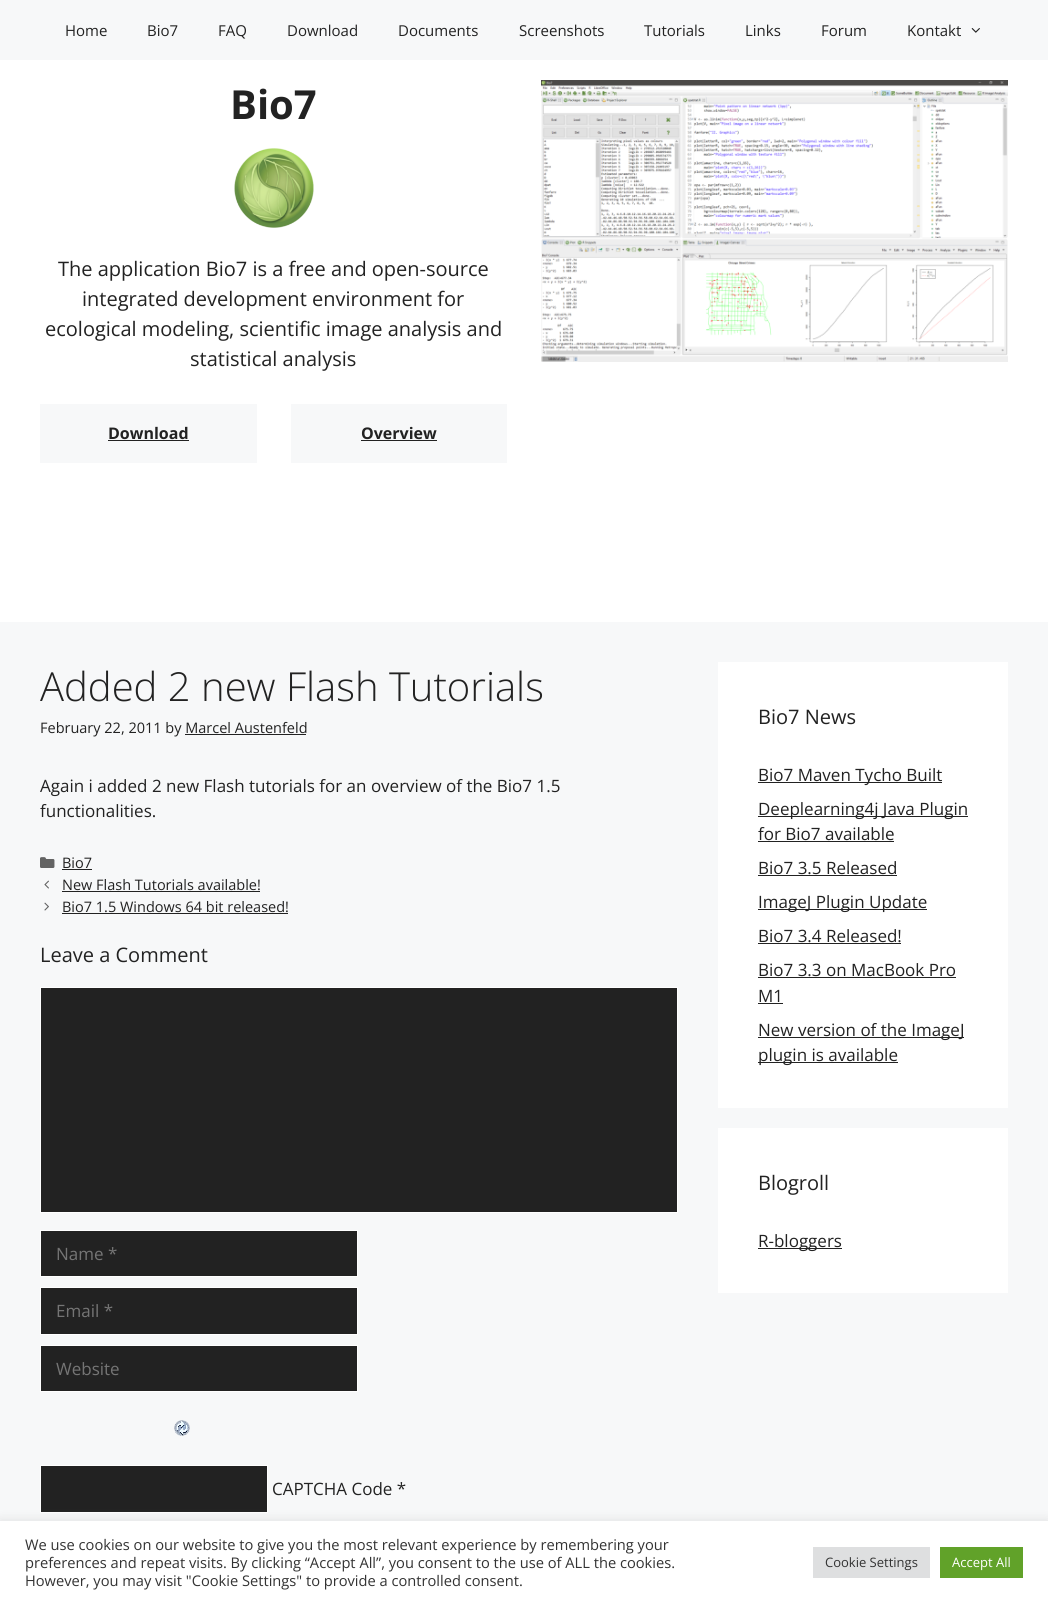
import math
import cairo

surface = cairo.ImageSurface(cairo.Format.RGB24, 1048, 1603)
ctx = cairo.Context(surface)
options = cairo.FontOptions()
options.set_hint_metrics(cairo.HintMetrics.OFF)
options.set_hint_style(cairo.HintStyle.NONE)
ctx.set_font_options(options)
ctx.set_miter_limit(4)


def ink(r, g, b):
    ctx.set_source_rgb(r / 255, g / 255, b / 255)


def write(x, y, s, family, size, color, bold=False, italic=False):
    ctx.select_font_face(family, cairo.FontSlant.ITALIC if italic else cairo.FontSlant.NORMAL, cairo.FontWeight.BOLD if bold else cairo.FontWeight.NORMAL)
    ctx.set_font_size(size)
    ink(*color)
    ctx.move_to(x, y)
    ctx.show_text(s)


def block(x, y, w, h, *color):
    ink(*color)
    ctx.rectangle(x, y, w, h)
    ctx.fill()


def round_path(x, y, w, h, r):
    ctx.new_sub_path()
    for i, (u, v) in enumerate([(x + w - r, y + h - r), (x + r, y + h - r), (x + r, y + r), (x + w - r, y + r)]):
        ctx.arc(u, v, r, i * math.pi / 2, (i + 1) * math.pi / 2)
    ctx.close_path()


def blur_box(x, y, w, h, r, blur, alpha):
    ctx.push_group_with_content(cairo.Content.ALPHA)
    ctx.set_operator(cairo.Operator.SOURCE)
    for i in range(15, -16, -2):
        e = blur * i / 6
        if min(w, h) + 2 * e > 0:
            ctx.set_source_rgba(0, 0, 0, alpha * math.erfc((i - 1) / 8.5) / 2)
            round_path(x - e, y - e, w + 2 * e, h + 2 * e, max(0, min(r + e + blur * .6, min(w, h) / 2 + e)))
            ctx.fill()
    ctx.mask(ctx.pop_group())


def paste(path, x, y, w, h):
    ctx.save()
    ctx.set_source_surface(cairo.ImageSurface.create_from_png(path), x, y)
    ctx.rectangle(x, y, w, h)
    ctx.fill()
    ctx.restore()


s1 = dict(family="Open Sans", size=15, color=(34, 34, 34))
s2 = dict(family="Open Sans", size=40, color=(34, 34, 34), bold=True)
s3 = dict(family="Open Sans", size=20, color=(34, 34, 34))
s4 = dict(family="Open Sans", size=16, color=(34, 34, 34), bold=True)
s5 = dict(family="Open Sans Light", size=40, color=(34, 34, 34))
s6 = dict(family="Open Sans", size=14.5, color=(34, 34, 34))
s7 = dict(family="Open Sans", size=17, color=(34, 34, 34))
s8 = dict(family="Open Sans", size=17, color=(117, 117, 117))
s9 = dict(family="Open Sans", size=14.65, color=(51, 51, 51))
s10 = dict(family="Open Sans", size=13, color=(51, 51, 51))
s11 = dict(family="Open Sans", size=13, color=(255, 255, 255))

ink(255, 255, 255)
ctx.paint()
block(0, 0, 1048, 60, 247, 248, 249)
write(65, 36, "Home", **s1)
write(147, 36, "Bio7", **s1)
write(218, 36, "FAQ", **s1)
write(287, 36, "Download", **s1)
write(398, 36, "Documents", **s1)
write(519, 36, "Screenshots", **s1)
write(644, 36, "Tutorials", **s1)
write(745, 36, "Links", **s1)
write(821, 36, "Forum", **s1)
write(907, 36, "Kontakt", **s1)
paste("pic1.png", 971, 28, 9, 5)
write(230, 119, "Bio7", **s2)
paste("pic2.png", 234, 148, 80, 80)
write(58, 276, "The application Bio7 is a free and open-source", **s3)
write(82, 306, "integrated development environment for", **s3)
write(45, 336, "ecological modeling, scientific image analysis and", **s3)
write(190, 366, "statistical analysis", **s3)
block(40, 404, 217, 59, 247, 248, 249)
write(108, 439, "Download", **s4)
block(108, 440, 81, 1, 34, 34, 34)
block(291, 404, 216, 59, 247, 248, 249)
write(361, 439, "Overview", **s4)
block(361, 440, 76, 1, 34, 34, 34)
paste("pic3.png", 541, 80, 467, 282)
block(0, 622, 1048, 899, 247, 248, 249)
write(40, 701, "Added 2 new Flash Tutorials", **s5)
write(40, 733, "February 22, 2011 by Marcel Austenfeld", **s6)
block(185, 734, 121, 1, 34, 34, 34)
write(40, 792, "Again i added 2 new Flash tutorials for an overview of the Bio7 1.5", **s7)
write(40, 817, "functionalities.", **s7)
paste("pic4.png", 40, 857, 15, 11)
write(62, 868, "Bio7", **s6)
block(62, 869, 30, 1, 34, 34, 34)
paste("pic5.png", 44, 880, 5, 9)
write(62, 890, "New Flash Tutorials available!", **s6)
block(62, 891, 198, 1, 34, 34, 34)
paste("pic6.png", 44, 902, 5, 9)
write(62, 912, "Bio7 1.5 Windows 64 bit released!", **s6)
block(62, 913, 226, 1, 34, 34, 34)
write(40, 962, "Leave a Comment", **s3)
ctx.rectangle(40.5, 987.5, 637, 225)
ctx.fill_preserve()
ink(255, 255, 255)
ctx.set_line_width(1)
ctx.stroke()
ink(34, 34, 34)
ctx.rectangle(40.5, 1230.5, 317, 46)
ctx.fill_preserve()
ink(255, 255, 255)
ctx.stroke()
write(56, 1260, "Name *", **s8)
ink(34, 34, 34)
ctx.rectangle(40.5, 1287.5, 317, 47)
ctx.fill_preserve()
ink(255, 255, 255)
ctx.stroke()
write(56, 1317, "Email *", **s8)
ink(34, 34, 34)
ctx.rectangle(40.5, 1345.5, 317, 46)
ctx.fill_preserve()
ink(255, 255, 255)
ctx.stroke()
write(56, 1375, "Website", **s8)
paste("pic7.png", 174, 1420, 16, 16)
ink(34, 34, 34)
ctx.rectangle(40.5, 1465.5, 227, 47)
ctx.fill_preserve()
ink(255, 255, 255)
ctx.stroke()
write(272, 1495, "CAPTCHA Code *", **s7)
block(718, 662, 290, 446, 255, 255, 255)
write(758, 724, "Bio7 News", **s3)
block(758, 782, 184, 1, 34, 34, 34)
write(758, 781, "Bio7 Maven Tycho Built", **s7)
block(758, 816, 210, 1, 34, 34, 34)
write(758, 815, "Deeplearning4j Java Plugin", **s7)
write(758, 840, "for Bio7 available", **s7)
block(758, 841, 136, 1, 34, 34, 34)
write(758, 874, "Bio7 3.5 Released", **s7)
block(758, 875, 139, 1, 34, 34, 34)
block(758, 909, 169, 1, 34, 34, 34)
write(758, 908, "ImageJ Plugin Update", **s7)
write(758, 942, "Bio7 3.4 Released!", **s7)
block(758, 943, 143, 1, 34, 34, 34)
write(758, 976, "Bio7 3.3 on MacBook Pro", **s7)
block(758, 977, 198, 1, 34, 34, 34)
write(758, 1002, "M1", **s7)
block(758, 1003, 25, 1, 34, 34, 34)
block(758, 1037, 206, 1, 34, 34, 34)
write(758, 1036, "New version of the ImageJ", **s7)
block(758, 1062, 140, 1, 34, 34, 34)
write(758, 1061, "plugin is available", **s7)
block(718, 1128, 290, 165, 255, 255, 255)
write(758, 1190, "Blogroll", **s3)
block(758, 1248, 84, 1, 34, 34, 34)
write(758, 1247, "R-bloggers", **s7)
ink(172, 171, 171)
blur_box(0, 1520, 1048, 82, 0, 5, 0.3)
block(0, 1521, 1048, 82, 255, 255, 255)
write(25, 1550, "We use cookies on our website to give you the most relevant experience by remembering your", **s9)
write(25, 1568, "preferences and repeat visits. By clicking “Accept All”, you consent to the use of ALL the cookies.", **s9)
write(25, 1586, "However, you may visit \"Cookie Settings\" to provide a controlled consent.", **s9)
block(813, 1547, 117, 31, 222, 223, 224)
write(825, 1567, "Cookie Settings", **s10)
block(940, 1547, 83, 31, 97, 162, 41)
write(952, 1567, "Accept All", **s11)
surface.write_to_png("screenshot.png")
